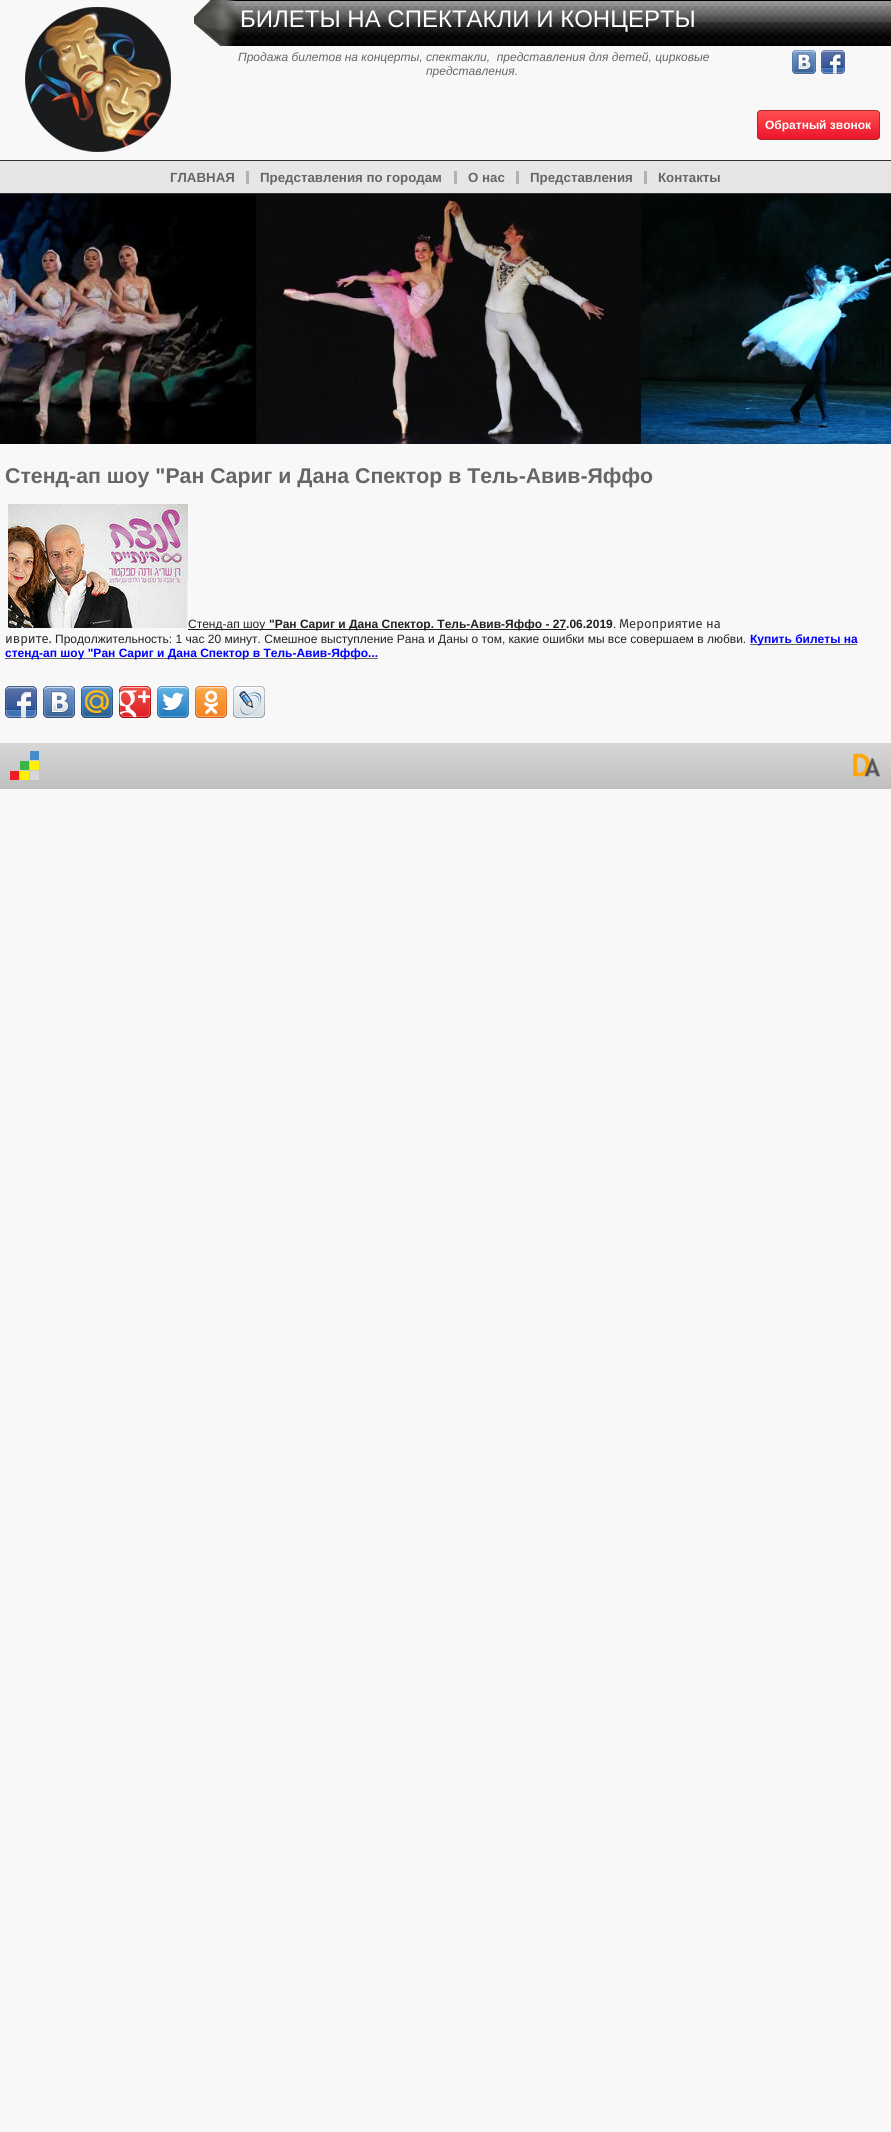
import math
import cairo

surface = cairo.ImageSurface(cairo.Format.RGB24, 891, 2132)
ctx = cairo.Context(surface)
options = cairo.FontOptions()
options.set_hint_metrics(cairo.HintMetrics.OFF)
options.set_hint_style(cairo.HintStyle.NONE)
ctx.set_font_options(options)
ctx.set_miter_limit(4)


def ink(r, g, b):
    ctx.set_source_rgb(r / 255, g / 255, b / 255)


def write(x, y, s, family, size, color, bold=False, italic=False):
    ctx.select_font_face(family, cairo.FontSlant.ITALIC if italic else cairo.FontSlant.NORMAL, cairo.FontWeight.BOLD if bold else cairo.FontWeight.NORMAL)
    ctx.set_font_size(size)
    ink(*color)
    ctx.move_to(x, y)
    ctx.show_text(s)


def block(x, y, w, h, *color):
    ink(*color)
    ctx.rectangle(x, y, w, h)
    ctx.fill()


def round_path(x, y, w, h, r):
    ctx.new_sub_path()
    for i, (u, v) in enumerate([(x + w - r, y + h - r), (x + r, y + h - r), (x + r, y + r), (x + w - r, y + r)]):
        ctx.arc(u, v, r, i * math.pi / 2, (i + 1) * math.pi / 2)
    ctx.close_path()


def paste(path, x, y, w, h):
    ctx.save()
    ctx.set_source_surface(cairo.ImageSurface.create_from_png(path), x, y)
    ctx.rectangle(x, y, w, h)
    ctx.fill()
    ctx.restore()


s1 = dict(family="Liberation Sans", size=24, color=(255, 255, 255))
s2 = dict(family="Liberation Sans", size=12, color=(102, 102, 102), italic=True)
s3 = dict(family="Liberation Sans", size=12, color=(255, 255, 255), bold=True)
s4 = dict(family="Liberation Sans", size=13.3, color=(102, 102, 102), bold=True)
s5 = dict(family="Liberation Sans", size=21.3, color=(102, 102, 102), bold=True)
s6 = dict(family="Liberation Sans", size=12, color=(34, 34, 34))
s7 = dict(family="Liberation Sans", size=12, color=(34, 34, 34), bold=True)
s8 = dict(family="Fira Sans", size=13, color=(51, 51, 51))
s9 = dict(family="Liberation Sans", size=12, color=(0, 0, 255), bold=True)

ink(248, 248, 248)
ctx.paint()
paste("pic1.png", 16, 0, 159, 156)
paste("pic2.png", 240, 0, 651, 46)
paste("pic3.png", 194, 0, 46, 46)
write(240, 27, "БИЛЕТЫ НА СПЕКТАКЛИ И КОНЦЕРТЫ", **s1)
write(238, 61, "Продажа билетов на концерты, спектакли,  представления для детей, цирковые", **s2)
write(426, 75, "представления.", **s2)
paste("pic4.png", 792, 50, 24, 24)
paste("pic5.png", 821, 50, 24, 24)
ctx.save()
round_path(757, 110, 123, 30, 4)
ctx.clip()
gradient = cairo.LinearGradient(819, 139, 819, 111)
gradient.add_color_stop_rgba(0, 0.922, 0.078, 0.173, 1)
gradient.add_color_stop_rgba(1, 1, 0.314, 0.314, 1)
ctx.set_source(gradient)
ctx.rectangle(757, 111, 123, 28)
ctx.fill()
ctx.restore()
round_path(757.5, 110.5, 122, 29, 3.5)
ink(172, 41, 37)
ctx.set_line_width(1)
ctx.stroke()
write(765, 129, "Обратный звонок", **s3)
block(0, 161, 891, 32, 230, 230, 230)
block(0, 160, 891, 1, 51, 51, 51)
block(0, 193, 891, 1, 51, 51, 51)
write(170, 182, "ГЛАВНАЯ", **s4)
block(246, 171, 3, 13, 178, 178, 178)
write(260, 182, "Представления по городам", **s4)
block(454, 171, 3, 13, 178, 178, 178)
write(468, 182, "О нас", **s4)
block(516, 171, 3, 13, 178, 178, 178)
write(530, 182, "Представления", **s4)
block(644, 171, 3, 13, 178, 178, 178)
write(658, 182, "Контакты", **s4)
paste("pic6.png", 0, 194, 891, 250)
write(5, 483, "Стенд-ап шоу \"Ран Сариг и Дана Спектор в Тель-Авив-Яффо", **s5)
paste("pic7.png", 8, 504, 180, 124)
block(188, 629, 378, 1, 34, 34, 34)
write(188, 628, "Стенд-ап шоу", **s6)
write(269, 628, "\"Ран Сариг и Дана Спектор. Тель-Авив-Яффо - 27.06.2019", **s7)
write(613, 628, ".", **s6)
write(619, 628, "Мероприятие на", **s8)
write(5, 643, "иврите.", **s8)
write(55, 643, "Продолжительность: 1 час 20 минут. Смешное выступление Рана и Даны о том, какие ошибки мы все совершаем в любви.", **s6)
block(750, 644, 107, 1, 105, 105, 105)
write(750, 643, "Купить билеты на", **s9)
block(5, 658, 373, 1, 105, 105, 105)
write(5, 657, "стенд-ап шоу \"Ран Сариг и Дана Спектор в Тель-Авив-Яффо...", **s9)
paste("pic8.png", 5, 686, 32, 32)
paste("pic9.png", 43, 686, 32, 32)
paste("pic10.png", 81, 686, 32, 32)
paste("pic11.png", 119, 686, 32, 32)
paste("pic12.png", 157, 686, 32, 32)
paste("pic13.png", 195, 686, 32, 32)
paste("pic14.png", 233, 686, 32, 32)
paste("pic15.png", 0, 743, 891, 46)
paste("pic16.png", 10, 751, 29, 29)
paste("pic17.png", 853, 753, 28, 24)
surface.write_to_png("screenshot.png")
